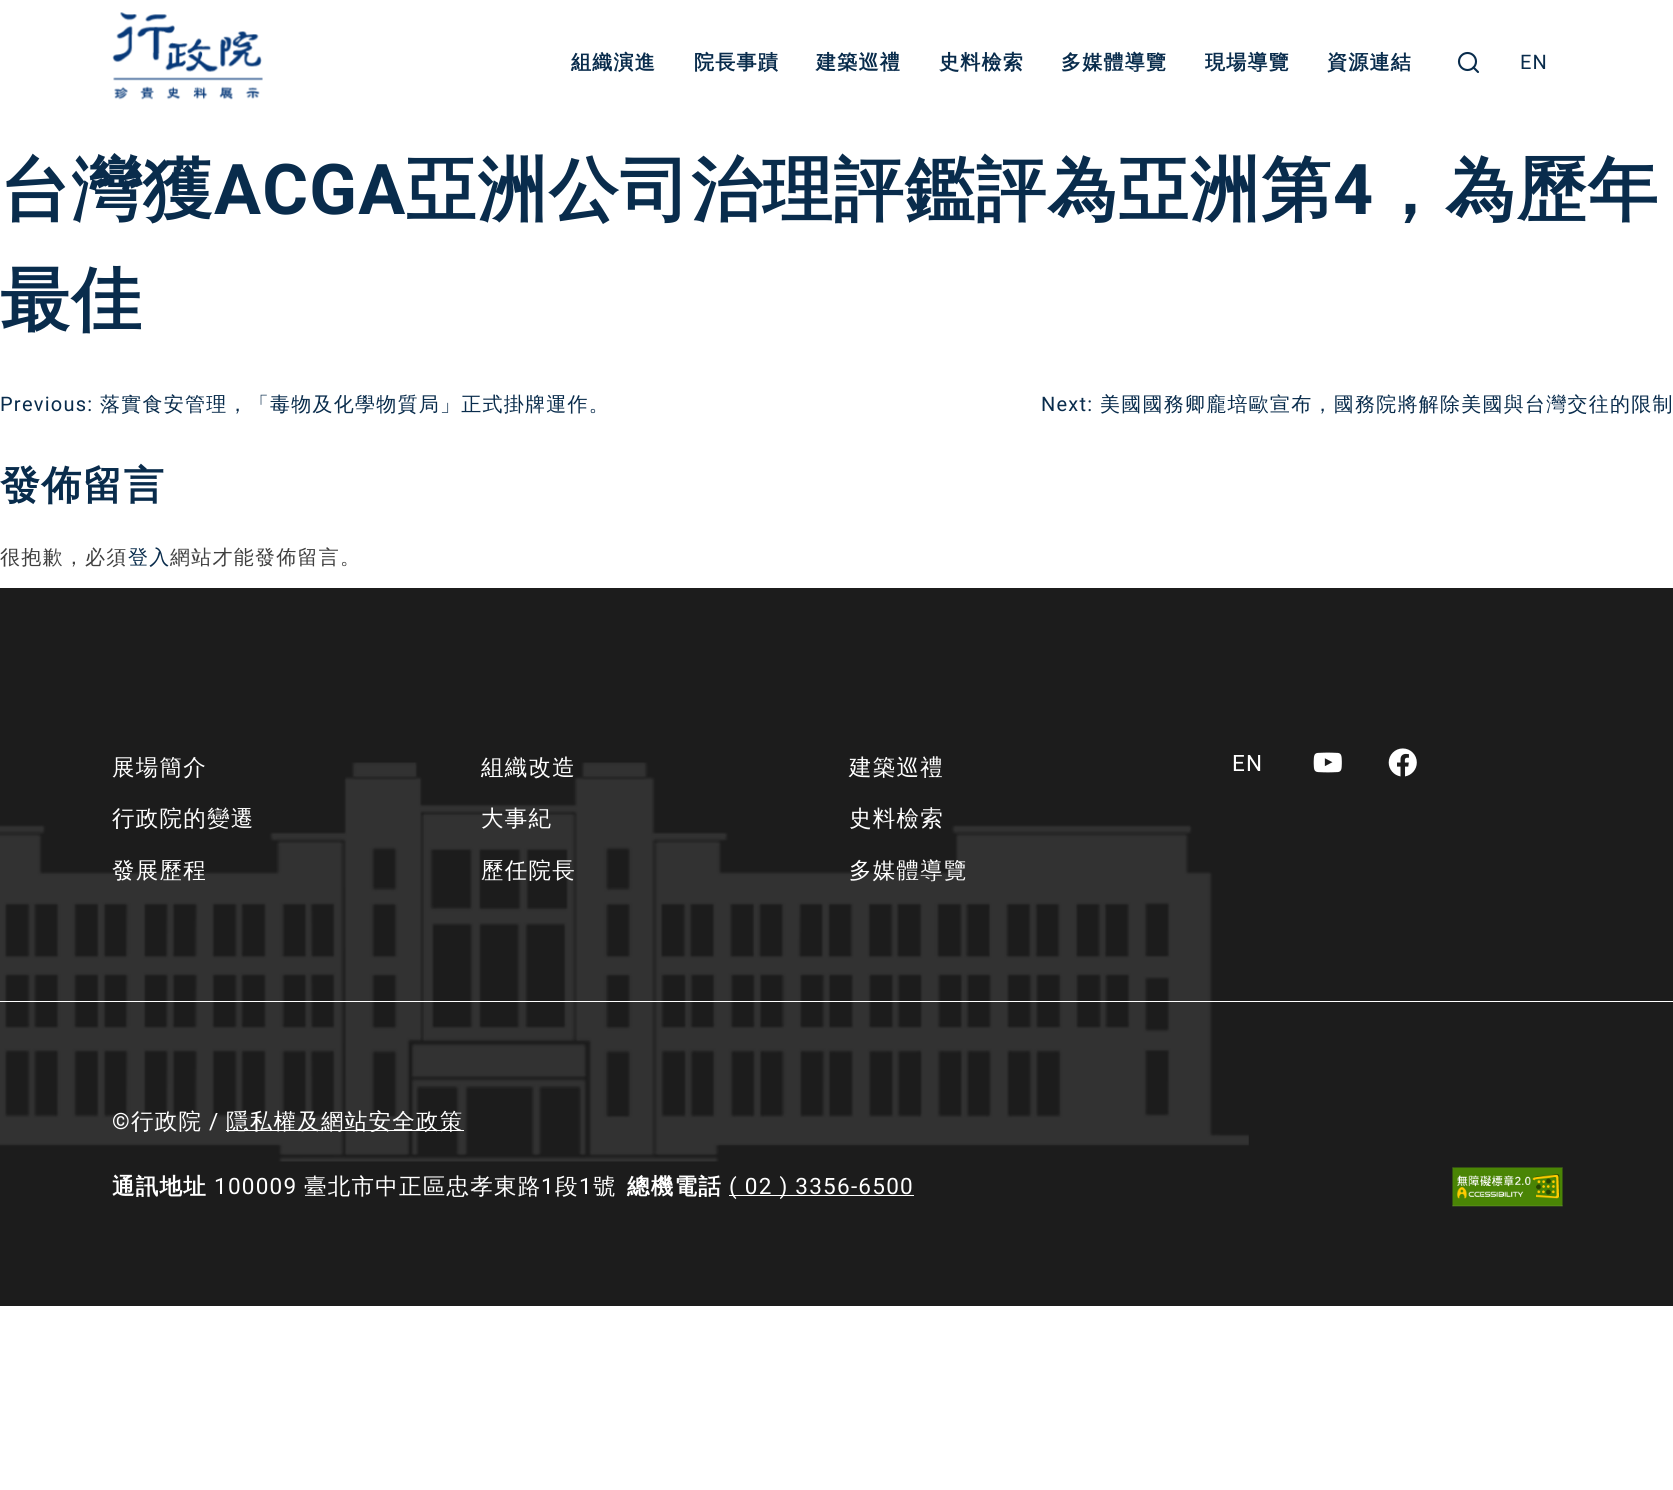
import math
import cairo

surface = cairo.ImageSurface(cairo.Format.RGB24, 1673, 1490)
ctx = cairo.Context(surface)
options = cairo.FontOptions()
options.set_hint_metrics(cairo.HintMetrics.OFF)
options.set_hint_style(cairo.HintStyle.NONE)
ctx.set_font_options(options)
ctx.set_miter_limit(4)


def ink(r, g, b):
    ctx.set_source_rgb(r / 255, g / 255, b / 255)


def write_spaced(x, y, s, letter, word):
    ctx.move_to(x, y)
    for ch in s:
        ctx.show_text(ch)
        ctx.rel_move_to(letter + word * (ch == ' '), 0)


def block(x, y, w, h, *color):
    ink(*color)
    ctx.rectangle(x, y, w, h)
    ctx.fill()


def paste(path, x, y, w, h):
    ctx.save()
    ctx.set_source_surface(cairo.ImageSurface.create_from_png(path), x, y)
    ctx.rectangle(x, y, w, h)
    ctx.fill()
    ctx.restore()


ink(255, 255, 255)
ctx.paint()
paste("pic1.png", 112, 12, 151, 88)
ctx.select_font_face("WenQuanYi Zen Hei", cairo.FontSlant.NORMAL, cairo.FontWeight.BOLD)
ctx.set_font_size(20)
ink(9, 44, 76)
write_spaced(571, 69, "組織演進", 1.25, 0)
write_spaced(694, 69, "院長事蹟", 1.25, 0)
write_spaced(816, 69, "建築巡禮", 1.25, 0)
write_spaced(939, 69, "史料檢索", 1.25, 0)
write_spaced(1061, 69, "多媒體導覽", 1.25, 0)
write_spaced(1205, 69, "現場導覽", 1.25, 0)
write_spaced(1327, 69, "資源連結", 1.25, 0)
ctx.new_path()
ctx.arc(1467.5, 61.5, 8.5, 0, 2 * math.pi)
ctx.set_line_width(2.1)
ctx.stroke()
ctx.new_path()
ctx.move_to(1478, 72)
ctx.line_to(1473.5, 67.5)
ctx.set_line_cap(cairo.LineCap.ROUND)
ctx.set_line_join(cairo.LineJoin.ROUND)
ctx.stroke()
ctx.select_font_face("Roboto")
write_spaced(1520, 69, "EN", 1.25, 0)
ctx.select_font_face("WenQuanYi Zen Hei", cairo.FontSlant.NORMAL, cairo.FontWeight.BOLD)
ctx.set_font_size(70)
write_spaced(0, 214, "台灣獲", 1.25, 0)
ctx.select_font_face("Roboto", cairo.FontSlant.NORMAL, cairo.FontWeight.BOLD)
write_spaced(214, 214, "ACGA", 1.25, 0)
ctx.select_font_face("WenQuanYi Zen Hei", cairo.FontSlant.NORMAL, cairo.FontWeight.BOLD)
write_spaced(406, 214, "亞洲公司治理評鑑評為亞洲第", 1.25, 0)
ctx.select_font_face("Roboto", cairo.FontSlant.NORMAL, cairo.FontWeight.BOLD)
write_spaced(1333, 214, "4", 1.25, 0)
ctx.select_font_face("WenQuanYi Zen Hei", cairo.FontSlant.NORMAL, cairo.FontWeight.BOLD)
write_spaced(1374, 214, "，為歷年", 1.25, 0)
write_spaced(0, 324, "最佳", 1.25, 0)
ctx.select_font_face("Roboto")
ctx.set_font_size(20)
write_spaced(0, 411, "Previous:", 1.25, 0)
ctx.select_font_face("WenQuanYi Zen Hei Medium")
write_spaced(100, 411, "落實食安管理，「毒物及化學物質局」正式掛牌運作。", 1.25, 0)
ctx.select_font_face("Roboto")
write_spaced(1041, 411, "Next:", 1.25, 0)
ctx.select_font_face("WenQuanYi Zen Hei Medium")
write_spaced(1100, 411, "美國國務卿龐培歐宣布，國務院將解除美國與台灣交往的限制", 1.25, 0)
ctx.select_font_face("WenQuanYi Zen Hei", cairo.FontSlant.NORMAL, cairo.FontWeight.BOLD)
ctx.set_font_size(40)
write_spaced(0, 499, "發佈留言", 1.25, 0)
ctx.select_font_face("WenQuanYi Zen Hei Medium")
ctx.set_font_size(20)
ink(64, 64, 64)
write_spaced(0, 564, "很抱歉，必須", 1.25, 0)
ink(9, 44, 76)
write_spaced(128, 564, "登入", 1.25, 0)
ink(64, 64, 64)
write_spaced(170, 564, "網站才能發佈留言。", 1.25, 0)
block(0, 588, 1673, 718, 28, 28, 28)
ctx.set_font_size(22.5)
ink(255, 255, 255)
write_spaced(112, 775, "展場簡介", 1.25, 0)
write_spaced(112, 826, "行政院的變遷", 1.25, 0)
write_spaced(112, 878, "發展歷程", 1.25, 0)
write_spaced(481, 775, "組織改造", 1.25, 0)
write_spaced(481, 826, "大事紀", 1.25, 0)
write_spaced(481, 878, "歷任院長", 1.25, 0)
write_spaced(849, 775, "建築巡禮", 1.25, 0)
write_spaced(849, 826, "史料檢索", 1.25, 0)
write_spaced(849, 878, "多媒體導覽", 1.25, 0)
ctx.select_font_face("Roboto")
write_spaced(1232, 771, "EN", 1.25, 0)
paste("pic2.png", 1313, 752, 29, 21)
paste("pic3.png", 1388, 748, 29, 29)
paste("pic4.png", 0, 762, 1249, 400)
block(0, 1001, 1673, 1, 255, 255, 255)
write_spaced(112, 1129, "©", 1.25, 0)
ctx.select_font_face("WenQuanYi Zen Hei Medium")
write_spaced(131, 1129, "行政院", 1.25, 0)
ctx.select_font_face("Roboto")
write_spaced(209, 1129, "/", 1.25, 0)
block(226, 1130, 238, 1, 255, 255, 255)
ctx.select_font_face("WenQuanYi Zen Hei Medium")
write_spaced(226, 1129, "隱私權及網站安全政策", 1.25, 0)
ctx.select_font_face("WenQuanYi Zen Hei", cairo.FontSlant.NORMAL, cairo.FontWeight.BOLD)
write_spaced(112, 1194, "通訊地址", 1.25, 0)
ctx.select_font_face("Roboto")
write_spaced(214, 1194, "100009", 1.25, 0)
ctx.select_font_face("WenQuanYi Zen Hei Medium")
write_spaced(304, 1194, "臺北市中正區忠孝東路", 1.25, 0)
ctx.select_font_face("Roboto")
write_spaced(541, 1194, "1", 1.25, 0)
ctx.select_font_face("WenQuanYi Zen Hei Medium")
write_spaced(555, 1194, "段", 1.25, 0)
ctx.select_font_face("Roboto")
write_spaced(579, 1194, "1", 1.25, 0)
ctx.select_font_face("WenQuanYi Zen Hei Medium")
write_spaced(593, 1194, "號", 1.25, 0)
ctx.select_font_face("WenQuanYi Zen Hei", cairo.FontSlant.NORMAL, cairo.FontWeight.BOLD)
write_spaced(627, 1194, "總機電話", 1.25, 0)
block(729, 1195, 185, 1, 255, 255, 255)
ctx.select_font_face("Roboto")
write_spaced(729, 1194, "( 02 ) 3356-6500", 1.25, 0)
paste("pic5.png", 1452, 1167, 111, 40)
surface.write_to_png("screenshot.png")
